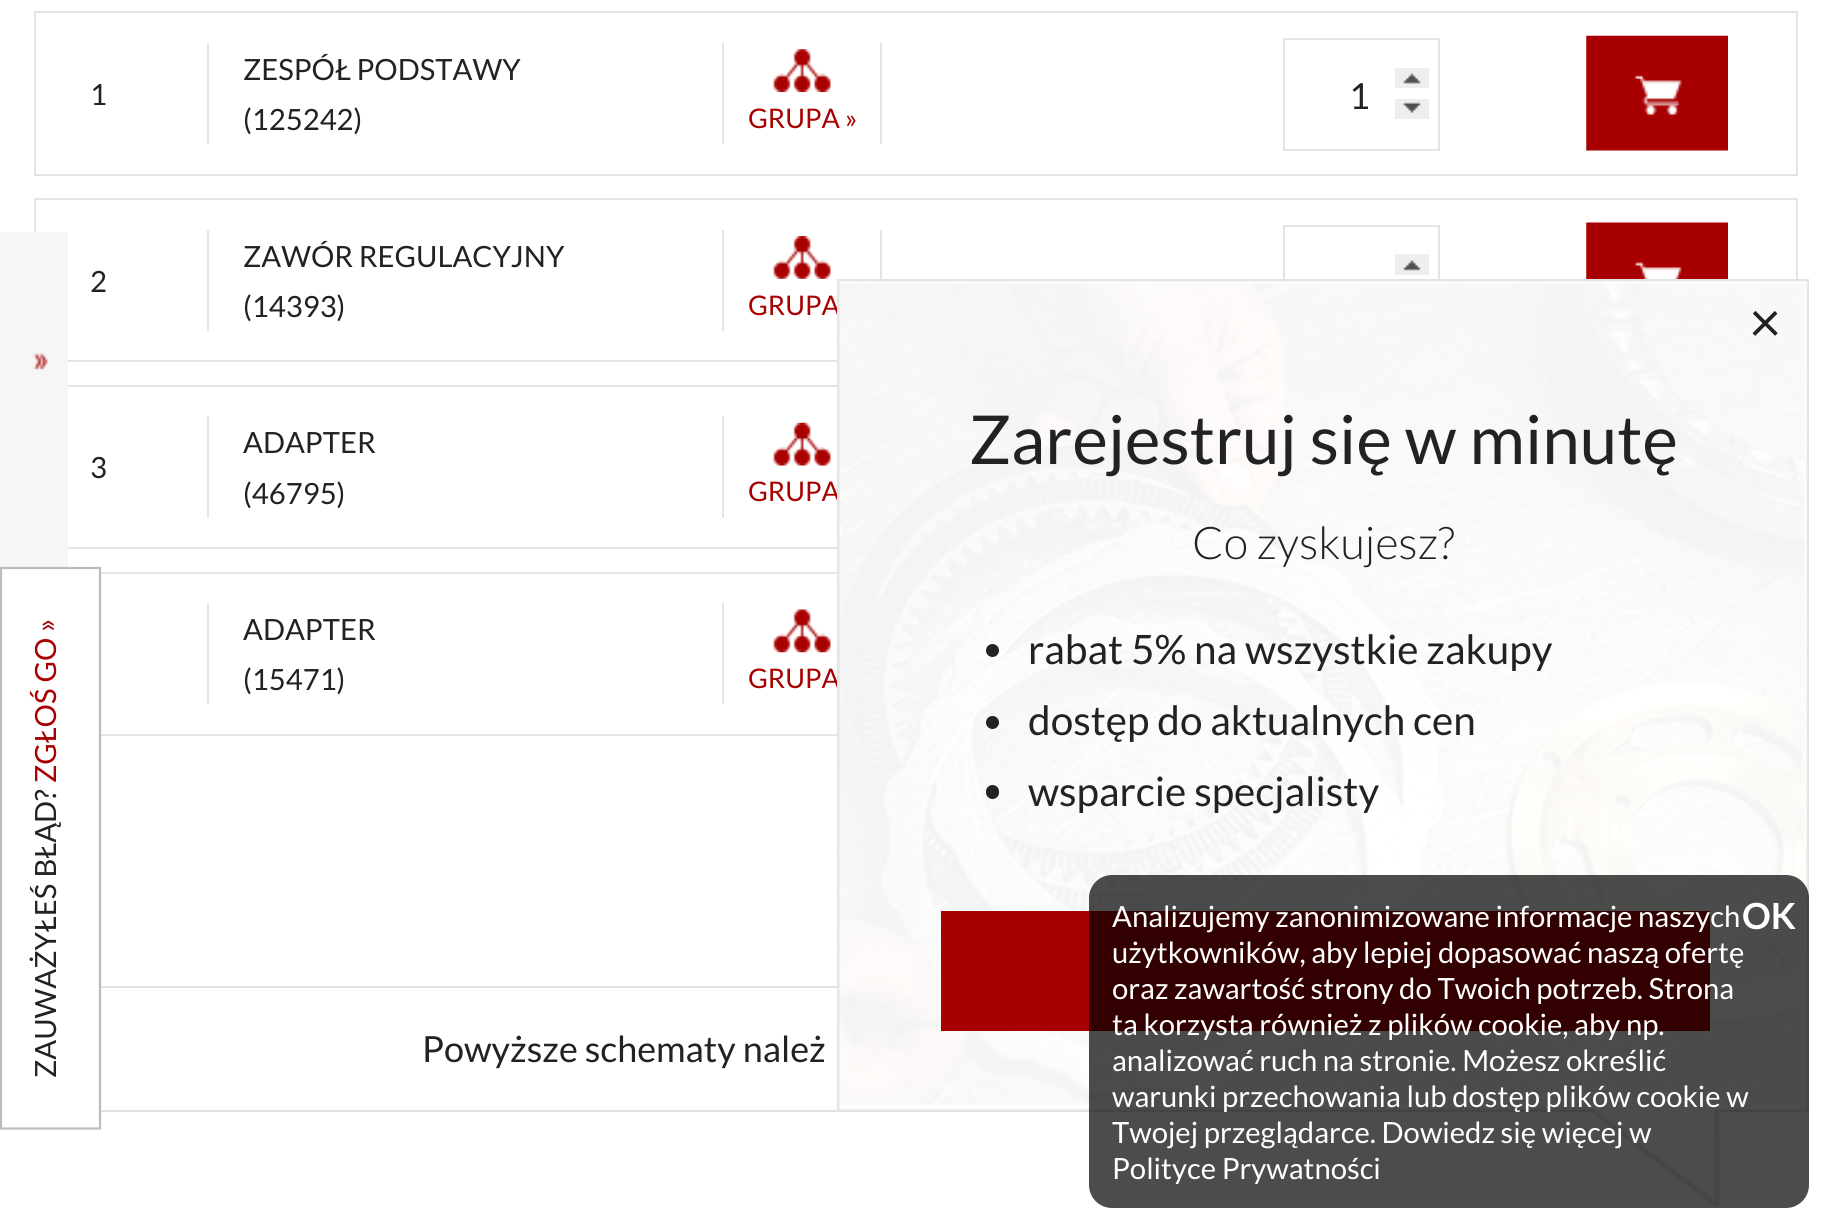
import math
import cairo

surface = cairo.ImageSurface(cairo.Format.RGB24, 1830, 1229)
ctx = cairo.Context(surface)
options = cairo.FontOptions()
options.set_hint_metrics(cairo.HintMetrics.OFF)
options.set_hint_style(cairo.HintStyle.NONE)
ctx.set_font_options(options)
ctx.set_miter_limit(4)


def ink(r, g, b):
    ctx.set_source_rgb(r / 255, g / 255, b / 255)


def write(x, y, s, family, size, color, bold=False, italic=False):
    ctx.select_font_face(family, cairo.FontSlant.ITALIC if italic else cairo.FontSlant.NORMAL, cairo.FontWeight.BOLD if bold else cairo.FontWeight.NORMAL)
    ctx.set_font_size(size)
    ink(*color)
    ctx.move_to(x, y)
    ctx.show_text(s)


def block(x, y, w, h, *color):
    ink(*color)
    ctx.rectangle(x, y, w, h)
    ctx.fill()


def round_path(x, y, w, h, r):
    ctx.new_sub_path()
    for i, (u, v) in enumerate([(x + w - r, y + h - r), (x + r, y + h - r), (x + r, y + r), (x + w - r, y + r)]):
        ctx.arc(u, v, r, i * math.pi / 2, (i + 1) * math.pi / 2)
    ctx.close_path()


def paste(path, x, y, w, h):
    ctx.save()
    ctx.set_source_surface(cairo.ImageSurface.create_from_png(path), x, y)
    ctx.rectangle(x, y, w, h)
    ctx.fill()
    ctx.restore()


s1 = dict(family="Lato", size=29.25, color=(168, 0, 0))
s2 = dict(family="Lato", size=29.25, color=(34, 34, 34))
s3 = dict(family="Lato", size=27, color=(168, 0, 0))
s4 = dict(family="Lato", size=36, color=(34, 34, 34))
s5 = dict(family="Lato", size=56, color=(34, 34, 34))
s6 = dict(family="Lato", size=67.5, color=(34, 34, 34))
s7 = dict(family="Lato Light", size=45, color=(34, 34, 34))
s8 = dict(family="Lato", size=40.5, color=(34, 34, 34))
s9 = dict(family="Lato", size=29.25, color=(255, 255, 255))
s10 = dict(family="Lato", size=36, color=(255, 255, 255), bold=True)

ink(255, 255, 255)
ctx.paint()
ctx.rectangle(35, 573, 1762, 162)
ink(228, 228, 228)
ctx.stroke()
ctx.rectangle(35, 987, 1762, 124)
ink(222, 226, 230)
ctx.stroke()
block(34, 572, 67, 540, 255, 255, 255)
ctx.rectangle(35, 199, 1762, 162)
ink(228, 228, 228)
ctx.stroke()
ctx.rectangle(35, 386, 1762, 162)
ctx.stroke()
block(0, 232, 68, 335, 246, 246, 246)
ctx.new_path()
ctx.move_to(1, 1128.5)
ctx.line_to(1, 568)
ctx.line_to(100, 568)
ctx.line_to(100, 1128.5)
ctx.close_path()
ink(188, 188, 188)
ctx.set_line_width(2.2)
ctx.stroke()
ctx.save()
ctx.translate(56, 783)
ctx.rotate(-90 * math.pi / 180)
write(0, 0, "ZGŁOŚ GO »", **s1)
ctx.restore()
ctx.save()
ctx.translate(56, 1078)
ctx.rotate(-90 * math.pi / 180)
write(0, 0, "ZAUWAŻYŁEŚ BŁĄD?", **s2)
ctx.restore()
paste("pic1.png", 33, 353, 15, 17)
ctx.rectangle(35, 12, 1762, 163)
ink(228, 228, 228)
ctx.set_line_width(2)
ctx.stroke()
write(90, 105, "1", **s2)
block(880, 43, 2, 101, 228, 228, 228)
block(207, 43, 2, 101, 228, 228, 228)
write(243, 80, "ZESPÓŁ PODSTAWY", **s2)
write(243, 130, "(125242)", **s2)
block(722, 43, 2, 101, 228, 228, 228)
paste("pic2.png", 773, 49, 58, 43)
write(748, 128, "GRUPA »", **s3)
ctx.rectangle(1284, 39, 155, 111)
ink(228, 228, 228)
ctx.stroke()
block(1395, 68, 34, 20, 238, 238, 238)
paste("pic3.png", 1403, 73, 18, 11)
write(1349, 109, "1", **s4)
block(1395, 99, 34, 20, 238, 238, 238)
paste("pic4.png", 1403, 102, 18, 11)
paste("pic5.png", 1586, 35, 142, 116)
write(90, 292, "2", **s2)
block(880, 230, 2, 49, 228, 228, 228)
block(207, 230, 2, 101, 228, 228, 228)
write(243, 267, "ZAWÓR REGULACYJNY", **s2)
write(243, 317, "(14393)", **s2)
block(722, 230, 2, 101, 228, 228, 228)
paste("pic6.png", 773, 236, 58, 43)
write(748, 315, "GRUPA", **s3)
ctx.rectangle(1284, 226, 155, 111)
ink(228, 228, 228)
ctx.stroke()
block(1395, 254, 34, 21, 238, 238, 238)
paste("pic7.png", 1403, 260, 18, 11)
paste("pic8.png", 1586, 222, 142, 57)
write(90, 478, "3", **s2)
block(207, 416, 2, 102, 228, 228, 228)
write(243, 453, "ADAPTER", **s2)
write(243, 504, "(46795)", **s2)
block(722, 416, 2, 102, 228, 228, 228)
paste("pic9.png", 773, 422, 58, 44)
write(748, 501, "GRUPA", **s3)
block(207, 603, 2, 101, 228, 228, 228)
write(243, 640, "ADAPTER", **s2)
write(243, 690, "(15471)", **s2)
block(722, 603, 2, 101, 228, 228, 228)
paste("pic10.png", 773, 609, 58, 44)
write(748, 688, "GRUPA", **s3)
write(422, 1062, "Powyższe schematy należ", **s4)
paste("pic11.png", 837, 279, 972, 928)
write(1749, 342, "×", **s5)
write(969, 464, "Zarejestruj się w minutę", **s6)
write(1192, 559, "Co zyskujesz?", **s7)
ctx.new_path()
ctx.arc(992.5, 650.5, 6.5, 0, 2 * math.pi)
ctx.fill()
write(1028, 664, "rabat 5% na wszystkie zakupy", **s8)
ctx.new_path()
ctx.arc(992.5, 722.5, 6.5, 0, 2 * math.pi)
ctx.fill()
write(1028, 735, "dostęp do aktualnych cen", **s8)
round_path(986, 785, 13, 14, 6.5)
ctx.fill()
write(1028, 806, "wsparcie specjalisty", **s8)
block(941, 911, 769, 120, 168, 0, 0)
ctx.set_source_rgba(0, 0, 0, 0.7)
round_path(1089, 875, 720, 333, 23)
ctx.fill()
write(1112, 927, "Analizujemy zanonimizowane informacje naszych", **s9)
write(1742, 929, "OK", **s10)
write(1112, 963, "użytkowników, aby lepiej dopasować naszą ofertę", **s9)
write(1112, 999, "oraz zawartość strony do Twoich potrzeb. Strona", **s9)
write(1112, 1035, "ta korzysta również z plików cookie, aby np.", **s9)
write(1112, 1071, "analizować ruch na stronie. Możesz określić", **s9)
write(1112, 1107, "warunki przechowania lub dostęp plików cookie w", **s9)
write(1112, 1143, "Twojej przeglądarce. Dowiedz się więcej w", **s9)
write(1112, 1179, "Polityce Prywatności", **s9)
surface.write_to_png("screenshot.png")
